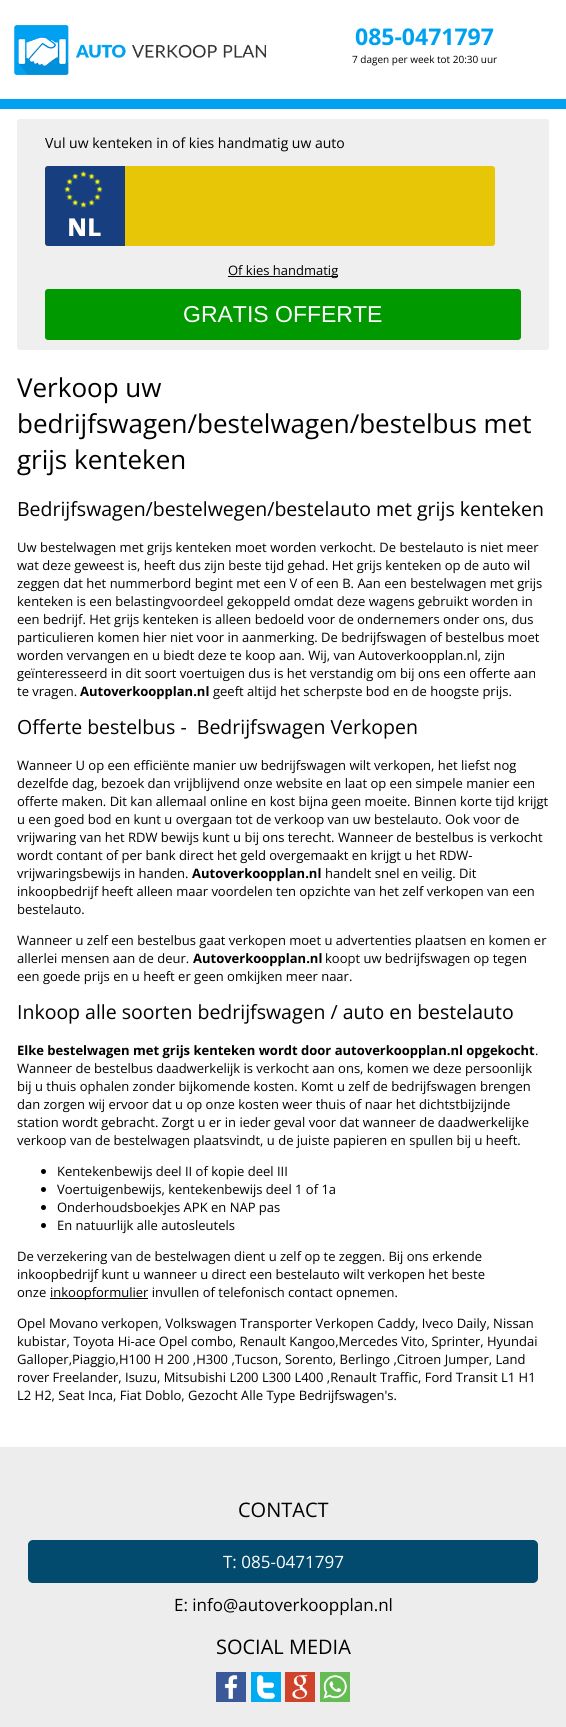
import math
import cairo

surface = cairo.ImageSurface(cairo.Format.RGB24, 566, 1727)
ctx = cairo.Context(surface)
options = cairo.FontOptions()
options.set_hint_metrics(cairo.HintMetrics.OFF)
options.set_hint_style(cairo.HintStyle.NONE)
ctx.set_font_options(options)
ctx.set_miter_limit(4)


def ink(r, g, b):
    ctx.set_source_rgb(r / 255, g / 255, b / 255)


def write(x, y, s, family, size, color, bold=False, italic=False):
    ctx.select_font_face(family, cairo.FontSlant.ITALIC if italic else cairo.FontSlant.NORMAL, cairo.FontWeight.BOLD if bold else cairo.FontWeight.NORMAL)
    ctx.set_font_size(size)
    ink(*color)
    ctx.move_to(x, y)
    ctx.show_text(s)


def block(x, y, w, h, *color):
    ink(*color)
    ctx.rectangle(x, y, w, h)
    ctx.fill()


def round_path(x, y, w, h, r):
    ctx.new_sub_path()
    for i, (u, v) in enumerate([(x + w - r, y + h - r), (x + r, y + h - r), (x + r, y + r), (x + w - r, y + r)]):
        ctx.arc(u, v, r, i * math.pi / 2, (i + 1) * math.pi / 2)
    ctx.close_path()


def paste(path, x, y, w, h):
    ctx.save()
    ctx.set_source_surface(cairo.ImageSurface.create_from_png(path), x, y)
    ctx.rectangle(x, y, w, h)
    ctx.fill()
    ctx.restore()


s1 = dict(family="Open Sans", size=23, color=(0, 161, 241), bold=True)
s2 = dict(family="Open Sans", size=10, color=(0, 0, 0))
s3 = dict(family="Open Sans", size=14, color=(0, 0, 0))
s4 = dict(family="Open Sans", size=13, color=(0, 0, 0))
s5 = dict(family="Liberation Sans", size=23, color=(255, 255, 255))
s6 = dict(family="Open Sans", size=26, color=(0, 0, 0))
s7 = dict(family="Open Sans", size=19.5, color=(0, 0, 0))
s8 = dict(family="Open Sans", size=13, color=(0, 0, 0), bold=True)
s9 = dict(family="Open Sans", size=20, color=(0, 0, 0))
s10 = dict(family="Open Sans", size=17, color=(255, 255, 255))
s11 = dict(family="Open Sans", size=17, color=(0, 0, 0))

ink(255, 255, 255)
ctx.paint()
block(0, 99, 566, 10, 0, 161, 241)
paste("pic1.png", 14, 25, 252, 50)
write(355, 45, "085-0471797", **s1)
write(352, 63, "7 dagen per week tot 20:30 uur", **s2)
ink(239, 239, 239)
round_path(17, 119, 532, 231, 3)
ctx.fill()
write(45, 148, "Vul uw kenteken in of kies handmatig uw auto", **s3)
paste("pic2.png", 45, 166, 450, 80)
block(228, 276, 110, 1, 0, 0, 0)
write(228, 275, "Of kies handmatig", **s4)
ink(0, 153, 0)
round_path(45, 289, 476, 51, 3)
ctx.fill()
write(183, 322, "GRATIS OFFERTE", **s5)
write(17, 397, "Verkoop uw", **s6)
write(17, 433, "bedrijfswagen/bestelwagen/bestelbus met", **s6)
write(17, 469, "grijs kenteken", **s6)
write(17, 516, "Bedrijfswagen/bestelwegen/bestelauto met grijs kenteken", **s7)
write(17, 552, "Uw bestelwagen met grijs kenteken moet worden verkocht. De bestelauto is niet meer", **s4)
write(17, 570, "wat deze geweest is, heeft dus zijn beste tijd gehad. Het grijs kenteken op de auto wil", **s4)
write(17, 588, "zeggen dat het nummerbord begint met een V of een B. Aan een bestelwagen met grijs", **s4)
write(17, 606, "kenteken is een belastingvoordeel gekoppeld omdat deze wagens gebruikt worden in", **s4)
write(17, 624, "een bedrijf. Het grijs kenteken is alleen bedoeld voor de ondernemers onder ons, dus", **s4)
write(17, 642, "particulieren komen hier niet voor in aanmerking. De bedrijfswagen of bestelbus moet", **s4)
write(17, 660, "worden vervangen en u biedt deze te koop aan. Wij, van Autoverkoopplan.nl, zijn", **s4)
write(17, 678, "geïnteresseerd in dit soort voertuigen dus is het verstandig om bij ons een offerte aan", **s4)
write(17, 696, "te vragen.", **s4)
write(80, 696, "Autoverkoopplan.nl", **s8)
write(213, 696, "geeft altijd het scherpste bod en de hoogste prijs.", **s4)
write(17, 734, "Offerte bestelbus -  Bedrijfswagen Verkopen", **s7)
write(17, 770, "Wanneer U op een efficiënte manier uw bedrijfswagen wilt verkopen, het liefst nog", **s4)
write(17, 788, "dezelfde dag, bezoek dan vrijblijvend onze website en laat op een simpele manier een", **s4)
write(17, 806, "offerte maken. Dit kan allemaal online en kost bijna geen moeite. Binnen korte tijd krijgt", **s4)
write(17, 824, "u een goed bod en kunt u overgaan tot de verkoop van uw bestelauto. Ook voor de", **s4)
write(17, 842, "vrijwaring van het RDW bewijs kunt u bij ons terecht. Wanneer de bestelbus is verkocht", **s4)
write(17, 860, "wordt contant of per bank direct het geld overgemaakt en krijgt u het RDW-", **s4)
write(17, 878, "vrijwaringsbewijs in handen.", **s4)
write(192, 878, "Autoverkoopplan.nl", **s8)
write(325, 878, "handelt snel en veilig. Dit", **s4)
write(17, 896, "inkoopbedrijf heeft alleen maar voordelen ten opzichte van het zelf verkopen van een", **s4)
write(17, 914, "bestelauto.", **s4)
write(17, 945, "Wanneer u zelf een bestelbus gaat verkopen moet u advertenties plaatsen en komen er", **s4)
write(17, 963, "allerlei mensen aan de deur.", **s4)
write(193, 963, "Autoverkoopplan.nl", **s8)
write(325, 963, "koopt uw bedrijfswagen op tegen", **s4)
write(17, 981, "een goede prijs en u heeft er geen omkijken meer naar.", **s4)
write(17, 1019, "Inkoop alle soorten bedrijfswagen / auto en bestelauto", **s7)
write(17, 1055, "Elke bestelwagen met grijs kenteken wordt door autoverkoopplan.nl opgekocht", **s8)
write(535, 1055, ".", **s4)
write(17, 1073, "Wanneer de bestelbus daadwerkelijk is verkocht aan ons, komen we deze persoonlijk", **s4)
write(17, 1091, "bij u thuis ophalen zonder bijkomende kosten. Komt u zelf de bedrijfswagen brengen", **s4)
write(17, 1109, "dan zorgen wij ervoor dat u op onze kosten weer thuis of naar het dichtstbijzijnde", **s4)
write(17, 1127, "station wordt gebracht. Zorgt u er in ieder geval voor dat wanneer de daadwerkelijke", **s4)
write(17, 1145, "verkoop van de bestelwagen plaatsvindt, u de juiste papieren en spullen bij u heeft.", **s4)
ctx.new_path()
ctx.arc(43.5, 1171.5, 2.5, 0, 2 * math.pi)
ctx.fill()
write(57, 1176, "Kentekenbewijs deel II of kopie deel III", **s4)
ctx.new_path()
ctx.arc(43.5, 1189.5, 2.5, 0, 2 * math.pi)
ctx.fill()
write(57, 1194, "Voertuigenbewijs, kentekenbewijs deel 1 of 1a", **s4)
ctx.new_path()
ctx.arc(43.5, 1207.5, 2.5, 0, 2 * math.pi)
ctx.fill()
write(57, 1212, "Onderhoudsboekjes APK en NAP pas", **s4)
ctx.new_path()
ctx.arc(43.5, 1225.5, 2.5, 0, 2 * math.pi)
ctx.fill()
write(57, 1230, "En natuurlijk alle autosleutels", **s4)
write(17, 1261, "De verzekering van de bestelwagen dient u zelf op te zeggen. Bij ons erkende", **s4)
write(17, 1279, "inkoopbedrijf kunt u wanneer u direct een bestelauto wilt verkopen het beste", **s4)
write(17, 1297, "onze", **s4)
block(50, 1298, 98, 1, 0, 0, 0)
write(50, 1297, "inkoopformulier invullen of telefonisch contact opnemen.", **s4)
write(17, 1328, "Opel Movano verkopen, Volkswagen Transporter Verkopen Caddy, Iveco Daily, Nissan", **s4)
write(17, 1346, "kubistar, Toyota Hi-ace Opel combo, Renault Kangoo,Mercedes Vito, Sprinter, Hyundai", **s4)
write(17, 1364, "Galloper,Piaggio,H100 H 200 ,H300 ,Tucson, Sorento, Berlingo ,Citroen Jumper, Land", **s4)
write(17, 1382, "rover Freelander, Isuzu, Mitsubishi L200 L300 L400 ,Renault Traffic, Ford Transit L1 H1", **s4)
write(17, 1400, "L2 H2, Seat Inca, Fiat Doblo, Gezocht Alle Type Bedrijfswagen's.", **s4)
block(0, 1447, 566, 280, 237, 237, 237)
write(238, 1517, "CONTACT", **s9)
ink(2, 75, 111)
round_path(28, 1540, 510, 43, 5)
ctx.fill()
write(223, 1568, "T: 085-0471797", **s10)
write(174, 1611, "E: info@autoverkoopplan.nl", **s11)
write(216, 1654, "SOCIAL MEDIA", **s9)
paste("pic3.png", 216, 1672, 30, 30)
paste("pic4.png", 251, 1672, 30, 30)
paste("pic5.png", 285, 1672, 30, 30)
paste("pic6.png", 320, 1672, 30, 30)
surface.write_to_png("screenshot.png")
